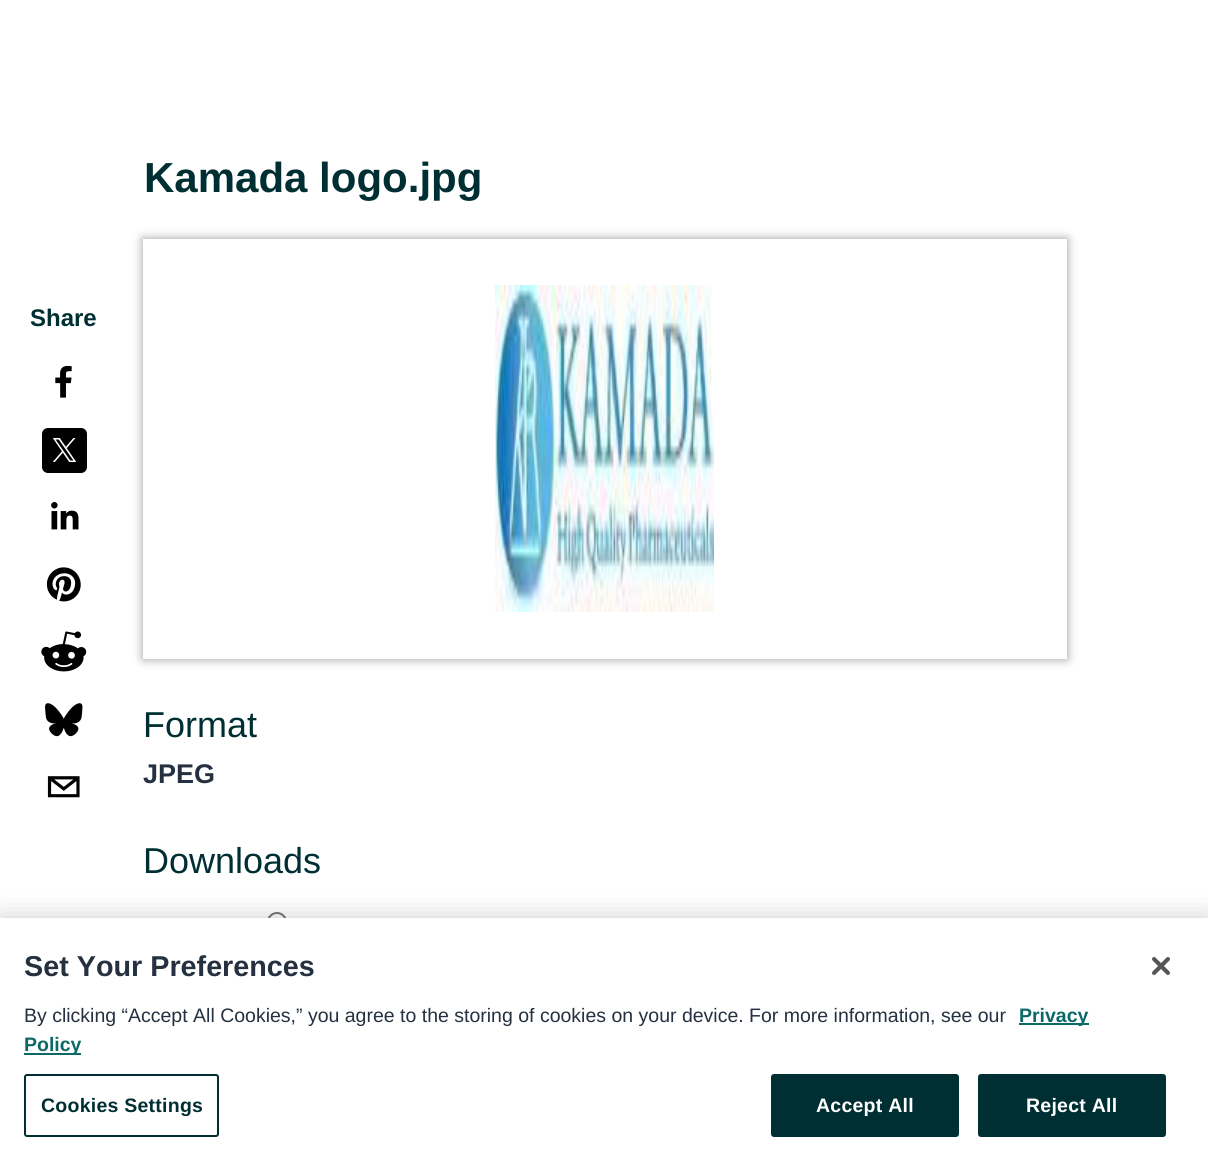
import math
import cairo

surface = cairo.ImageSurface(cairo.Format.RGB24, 1208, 1166)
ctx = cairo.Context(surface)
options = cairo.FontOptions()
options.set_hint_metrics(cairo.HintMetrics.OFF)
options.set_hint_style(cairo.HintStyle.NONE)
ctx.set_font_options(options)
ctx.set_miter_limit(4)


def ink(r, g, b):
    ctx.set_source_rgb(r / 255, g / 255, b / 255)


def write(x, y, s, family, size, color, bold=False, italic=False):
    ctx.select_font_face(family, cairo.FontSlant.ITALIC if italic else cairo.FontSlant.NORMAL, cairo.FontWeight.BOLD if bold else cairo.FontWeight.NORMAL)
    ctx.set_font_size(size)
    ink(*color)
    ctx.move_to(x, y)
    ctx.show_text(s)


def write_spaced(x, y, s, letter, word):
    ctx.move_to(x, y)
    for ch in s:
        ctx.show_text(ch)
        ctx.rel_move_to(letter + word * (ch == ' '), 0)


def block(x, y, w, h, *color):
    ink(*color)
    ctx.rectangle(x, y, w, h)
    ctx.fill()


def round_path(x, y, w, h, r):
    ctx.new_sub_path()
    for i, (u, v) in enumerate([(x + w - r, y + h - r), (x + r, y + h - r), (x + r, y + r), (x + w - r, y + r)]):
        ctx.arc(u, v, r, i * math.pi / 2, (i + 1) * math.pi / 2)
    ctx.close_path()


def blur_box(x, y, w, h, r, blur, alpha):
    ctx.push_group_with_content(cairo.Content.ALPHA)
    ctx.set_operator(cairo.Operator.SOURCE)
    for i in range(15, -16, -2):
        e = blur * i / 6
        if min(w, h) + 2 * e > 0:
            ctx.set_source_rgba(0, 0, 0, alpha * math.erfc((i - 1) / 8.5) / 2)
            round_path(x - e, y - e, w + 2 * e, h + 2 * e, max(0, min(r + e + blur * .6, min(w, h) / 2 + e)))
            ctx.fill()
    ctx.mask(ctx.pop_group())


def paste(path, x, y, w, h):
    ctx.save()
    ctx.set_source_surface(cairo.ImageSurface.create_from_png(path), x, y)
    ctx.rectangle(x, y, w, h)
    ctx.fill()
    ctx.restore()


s1 = dict(family="Liberation Sans", size=24, color=(0, 47, 51), bold=True)
s2 = dict(family="Liberation Sans", size=42, color=(0, 47, 51), bold=True)
s3 = dict(family="Liberation Sans", size=36, color=(0, 47, 51))
s4 = dict(family="Liberation Sans", size=27, color=(37, 49, 64), bold=True)
s5 = dict(family="Liberation Sans", size=28.75, color=(37, 49, 64), bold=True)
s6 = dict(family="Liberation Sans", size=19.5, color=(37, 49, 64))
s7 = dict(family="Liberation Sans", size=19.5, color=(13, 104, 104), bold=True)

ink(255, 255, 255)
ctx.paint()
write(30, 326, "Share", **s1)
paste("pic1.png", 55, 365, 17, 33)
ink(0, 0, 0)
round_path(42, 428, 45, 45, 6)
ctx.fill()
paste("pic2.png", 53, 438, 24, 24)
paste("pic3.png", 51, 502, 28, 28)
paste("pic4.png", 46, 567, 35, 35)
paste("pic5.png", 41, 631, 46, 41)
paste("pic6.png", 45, 703, 38, 34)
paste("pic7.png", 47, 776, 33, 22)
write(144, 192, "Kamada logo.jpg", **s2)
ctx.save()
ctx.set_fill_rule(cairo.FillRule.EVEN_ODD)
ctx.new_path()
ctx.move_to(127, 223)
ctx.line_to(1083, 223)
ctx.line_to(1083, 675)
ctx.line_to(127, 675)
ctx.close_path()
ctx.move_to(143, 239)
ctx.line_to(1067, 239)
ctx.line_to(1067, 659)
ctx.line_to(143, 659)
ctx.close_path()
ctx.clip()
ink(0, 0, 0)
blur_box(143, 239, 924, 420, 0, 5, 0.4)
ctx.restore()
paste("pic8.png", 495, 285, 219, 327)
write(143, 737, "Format", **s3)
write(143, 783, "JPEG", **s4)
write(143, 873, "Downloads", **s3)
ctx.new_path()
ctx.arc(277, 922, 9, 0, 2 * math.pi)
ink(118, 118, 118)
ctx.stroke()
ink(0, 0, 0)
blur_box(0, 918, 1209, 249, 0, 13.5, 0.2)
block(0, 918, 1208, 248, 255, 255, 255)
write(24, 976, "Set Your Preferences", **s5)
write(24, 1022, "By clicking “Accept All Cookies,” you agree to the storing of cookies on your device. For more information, see our", **s6)
block(1019, 1023, 70, 2, 13, 104, 104)
write(1019, 1022, "Privacy", **s7)
block(24, 1053, 57, 2, 13, 104, 104)
write(24, 1051, "Policy", **s7)
round_path(25, 1075, 193, 61, 2)
ink(0, 47, 51)
ctx.stroke()
write_spaced(41, 1112, "Cookies Settings", 0.25, 0)
round_path(772, 1075, 186, 61, 2)
ctx.fill_preserve()
ctx.stroke()
ink(255, 255, 255)
write_spaced(816, 1112, "Accept All", 0.25, 0)
ink(0, 47, 51)
round_path(979, 1075, 186, 61, 2)
ctx.fill_preserve()
ctx.stroke()
ink(255, 255, 255)
write_spaced(1026, 1112, "Reject All", 0.25, 0)
paste("pic9.png", 1152, 957, 18, 18)
surface.write_to_png("screenshot.png")
